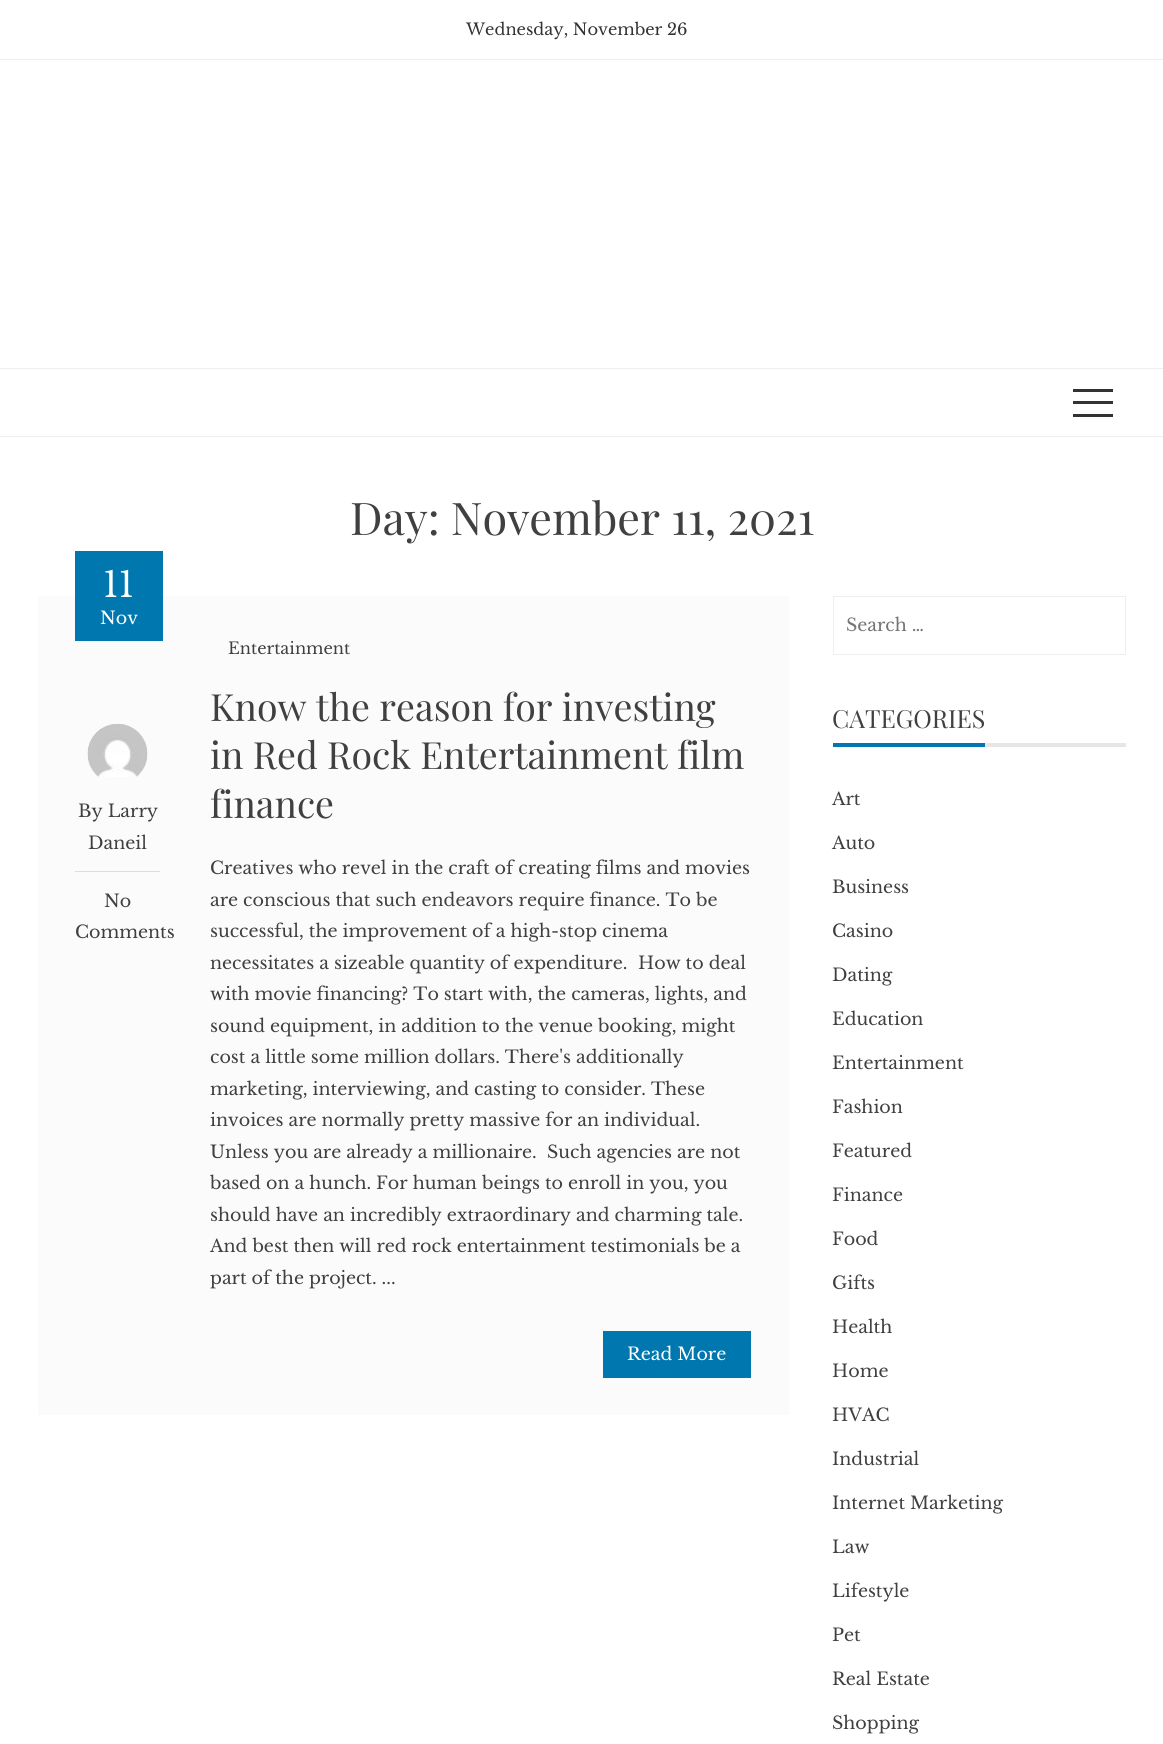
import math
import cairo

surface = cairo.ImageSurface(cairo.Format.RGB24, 1163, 1744)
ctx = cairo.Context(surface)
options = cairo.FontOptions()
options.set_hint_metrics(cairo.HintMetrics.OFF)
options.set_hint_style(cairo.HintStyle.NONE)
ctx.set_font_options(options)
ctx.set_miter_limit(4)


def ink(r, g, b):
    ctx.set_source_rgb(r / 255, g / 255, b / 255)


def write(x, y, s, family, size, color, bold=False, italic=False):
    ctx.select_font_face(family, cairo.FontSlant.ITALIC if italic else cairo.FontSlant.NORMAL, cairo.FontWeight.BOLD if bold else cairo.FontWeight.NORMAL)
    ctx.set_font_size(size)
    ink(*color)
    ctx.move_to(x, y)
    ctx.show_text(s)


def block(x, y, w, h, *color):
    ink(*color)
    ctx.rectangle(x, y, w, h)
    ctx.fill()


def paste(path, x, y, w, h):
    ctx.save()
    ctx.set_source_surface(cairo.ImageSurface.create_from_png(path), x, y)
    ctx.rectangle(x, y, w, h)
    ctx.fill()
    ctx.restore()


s1 = dict(family="Libre Baskerville", size=16.25, color=(51, 51, 51))
s2 = dict(family="Playfair Display", size=45, color=(64, 64, 64))
s3 = dict(family="Libre Baskerville", size=35, color=(255, 255, 255))
s4 = dict(family="Libre Baskerville", size=17.5, color=(255, 255, 255))
s5 = dict(family="Libre Baskerville", size=17.5, color=(64, 64, 64))
s6 = dict(family="Libre Baskerville", size=16.25, color=(64, 64, 64))
s7 = dict(family="Playfair Display", size=37.5, color=(64, 64, 64))
s8 = dict(family="Libre Baskerville", size=17.5, color=(117, 117, 117))
s9 = dict(family="Playfair Display", size=25, color=(64, 64, 64))

ink(255, 255, 255)
ctx.paint()
block(0, 59, 1163, 1, 238, 238, 238)
write(466, 35, "Wednesday, November 26", **s1)
block(0, 368, 1163, 1, 238, 238, 238)
block(0, 436, 1163, 1, 238, 238, 238)
block(1073, 389, 40, 3, 51, 51, 51)
block(1073, 414, 40, 3, 51, 51, 51)
block(1073, 401, 40, 3, 51, 51, 51)
write(350, 535, "Day: November 11, 2021", **s2)
block(38, 596, 751, 819, 251, 251, 251)
block(75, 551, 88, 90, 0, 120, 175)
write(103, 597, "11", **s3)
write(100, 624, "Nov", **s4)
block(75, 871, 85, 1, 221, 221, 221)
paste("pic1.png", 87, 724, 61, 53)
write(78, 817, "By Larry", **s5)
write(88, 849, "Daneil", **s5)
write(104, 907, "No", **s5)
write(75, 938, "Comments", **s5)
write(228, 654, "Entertainment", **s6)
write(210, 721, "Know the reason for investing", **s7)
write(210, 769, "in Red Rock Entertainment film", **s7)
write(210, 818, "finance", **s7)
write(210, 874, "Creatives who revel in the craft of creating films and movies", **s5)
write(210, 906, "are conscious that such endeavors require finance. To be", **s5)
write(210, 937, "successful, the improvement of a high-stop cinema", **s5)
write(210, 969, "necessitates a sizeable quantity of expenditure.", **s5)
write(638, 969, "How to deal", **s5)
write(210, 1000, "with movie financing? To start with, the cameras, lights, and", **s5)
write(210, 1032, "sound equipment, in addition to the venue booking, might", **s5)
write(210, 1063, "cost a little some million dollars. There's additionally", **s5)
write(210, 1095, "marketing, interviewing, and casting to consider. These", **s5)
write(210, 1126, "invoices are normally pretty massive for an individual.", **s5)
write(210, 1158, "Unless you are already a millionaire.", **s5)
write(547, 1158, "Such agencies are not", **s5)
write(210, 1189, "based on a hunch. For human beings to enroll in you, you", **s5)
write(210, 1221, "should have an incredibly extraordinary and charming tale.", **s5)
write(210, 1252, "And best then will red rock entertainment testimonials be a", **s5)
write(210, 1284, "part of the project. ...", **s5)
block(603, 1331, 148, 47, 0, 120, 175)
write(627, 1360, "Read More", **s4)
ctx.rectangle(833.5, 596.5, 292, 58)
ink(238, 238, 238)
ctx.set_line_width(1)
ctx.stroke()
write(846, 631, "Search …", **s8)
block(985, 743, 141, 4, 230, 230, 230)
write(832, 728, "CATEGORIES", **s9)
block(833, 743, 152, 4, 0, 120, 175)
write(832, 805, "Art", **s5)
write(832, 849, "Auto", **s5)
write(832, 893, "Business", **s5)
write(832, 937, "Casino", **s5)
write(832, 981, "Dating", **s5)
write(832, 1025, "Education", **s5)
write(832, 1069, "Entertainment", **s5)
write(832, 1113, "Fashion", **s5)
write(832, 1157, "Featured", **s5)
write(832, 1201, "Finance", **s5)
write(832, 1245, "Food", **s5)
write(832, 1289, "Gifts", **s5)
write(832, 1333, "Health", **s5)
write(832, 1377, "Home", **s5)
write(832, 1421, "HVAC", **s5)
write(832, 1465, "Industrial", **s5)
write(832, 1509, "Internet Marketing", **s5)
write(832, 1553, "Law", **s5)
write(832, 1597, "Lifestyle", **s5)
write(832, 1641, "Pet", **s5)
write(832, 1685, "Real Estate", **s5)
write(832, 1729, "Shopping", **s5)
surface.write_to_png("screenshot.png")
